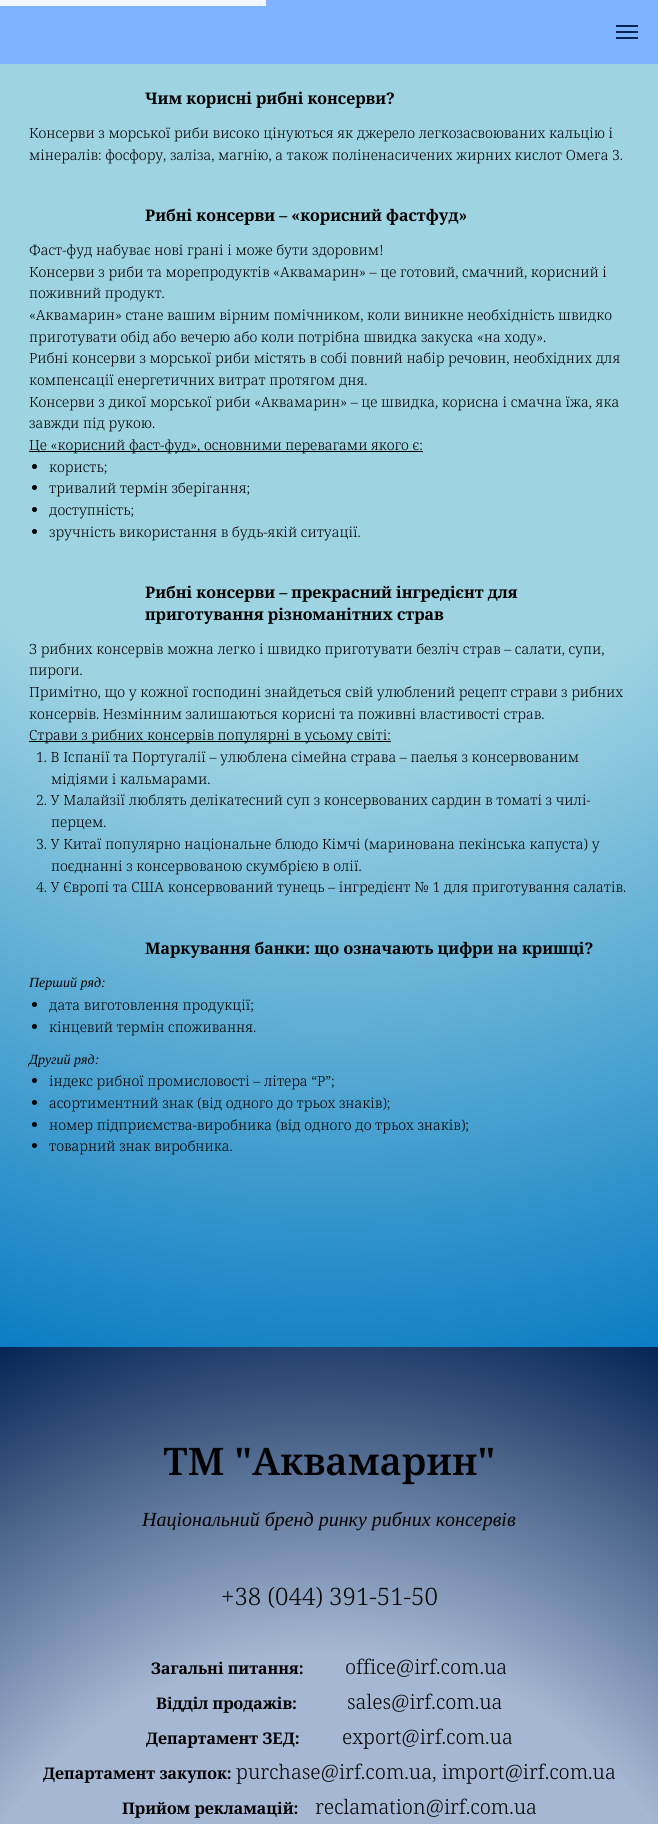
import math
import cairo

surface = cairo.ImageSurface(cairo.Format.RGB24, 658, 1824)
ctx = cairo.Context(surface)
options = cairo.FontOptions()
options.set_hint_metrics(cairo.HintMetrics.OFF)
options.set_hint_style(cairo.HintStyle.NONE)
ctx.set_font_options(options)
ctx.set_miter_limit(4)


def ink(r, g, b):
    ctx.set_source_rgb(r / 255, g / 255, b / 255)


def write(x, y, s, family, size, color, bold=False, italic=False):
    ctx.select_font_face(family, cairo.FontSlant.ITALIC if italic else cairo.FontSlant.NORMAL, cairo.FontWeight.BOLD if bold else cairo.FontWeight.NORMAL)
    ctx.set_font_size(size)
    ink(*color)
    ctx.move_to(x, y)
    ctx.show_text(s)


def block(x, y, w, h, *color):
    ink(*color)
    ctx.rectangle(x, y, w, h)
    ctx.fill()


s1 = dict(family="Noto Serif", size=16, color=(0, 0, 0), bold=True)
s2 = dict(family="Noto Serif Light", size=14, color=(0, 0, 0))
s3 = dict(family="Liberation Serif", size=14, color=(0, 0, 0), italic=True)
s4 = dict(family="Noto Serif SemiBold", size=38, color=(0, 0, 0))
s5 = dict(family="Liberation Serif", size=20, color=(0, 0, 0), italic=True)
s6 = dict(family="Noto Serif Light", size=24, color=(0, 0, 0))
s7 = dict(family="Noto Serif Light", size=20, color=(0, 0, 0))

ink(255, 255, 255)
ctx.paint()
block(0, 0, 658, 64, 126, 179, 255)
block(616, 25, 22, 2, 5, 37, 85)
block(616, 31, 22, 2, 5, 37, 85)
block(616, 37, 22, 2, 5, 37, 85)
block(0, 0, 266, 6, 242, 248, 253)
gradient = cairo.RadialGradient(329, 281, 0, 329, 281, 1116)
gradient.add_color_stop_rgba(0.42, 0.62, 0.827, 0.886, 1)
gradient.add_color_stop_rgba(1, 0.043, 0.49, 0.765, 1)
ctx.set_source(gradient)
ctx.rectangle(0, 64, 658, 1283)
ctx.fill()
write(145, 104, "Чим корисні рибні консерви?", **s1)
write(29, 138, "Консерви з морської риби високо цінуються як джерело легкозасвоюваних кальцію і", **s2)
write(29, 160, "мінералів: фосфору, заліза, магнію, а також поліненасичених жирних кислот Омега 3.", **s2)
write(145, 221, "Рибні консерви – «корисний фастфуд»", **s1)
write(29, 255, "Фаст-фуд набуває нові грані і може бути здоровим!", **s2)
write(29, 277, "Консерви з риби та морепродуктів «Аквамарин» – це готовий, смачний, корисний і", **s2)
write(29, 298, "поживний продукт.", **s2)
write(29, 320, "«Аквамарин» стане вашим вірним помічником, коли виникне необхідність швидко", **s2)
write(29, 342, "приготувати обід або вечерю або коли потрібна швидка закуска «на ходу».", **s2)
write(29, 363, "Рибні консерви з морської риби містять в собі повний набір речовин, необхідних для", **s2)
write(29, 385, "компенсації енергетичних витрат протягом дня.", **s2)
write(29, 407, "Консерви з дикої морської риби «Аквамарин» – це швидка, корисна і смачна їжа, яка", **s2)
write(29, 428, "завжди під рукою.", **s2)
block(29, 451, 394, 1, 0, 0, 0)
write(29, 450, "Це «корисний фаст-фуд», основними перевагами якого є:", **s2)
ctx.new_path()
ctx.arc(34.5, 466.5, 2.5, 0, 2 * math.pi)
ctx.fill()
write(49, 472, "користь;", **s2)
ctx.new_path()
ctx.arc(34.5, 487.5, 2.5, 0, 2 * math.pi)
ctx.fill()
write(49, 493, "тривалий термін зберігання;", **s2)
ctx.new_path()
ctx.arc(34.5, 509.5, 2.5, 0, 2 * math.pi)
ctx.fill()
write(49, 515, "доступність;", **s2)
ctx.new_path()
ctx.arc(34.5, 531.5, 2.5, 0, 2 * math.pi)
ctx.fill()
write(49, 537, "зручність використання в будь-якій ситуації.", **s2)
write(145, 598, "Рибні консерви – прекрасний інгредієнт для", **s1)
write(145, 620, "приготування різноманітних страв", **s1)
write(29, 654, "З рибних консервів можна легко і швидко приготувати безліч страв – салати, супи,", **s2)
write(29, 675, "пироги.", **s2)
write(29, 697, "Примітно, що у кожної господині знайдеться свій улюблений рецепт страви з рибних", **s2)
write(29, 719, "консервів. Незмінним залишаються корисні та поживні властивості страв.", **s2)
block(29, 741, 362, 1, 0, 0, 0)
write(29, 740, "Страви з рибних консервів популярні в усьому світі:", **s2)
write(36, 762, "1. В Іспанії та Португалії – улюблена сімейна страва – паелья з консервованим", **s2)
write(51, 784, "мідіями і кальмарами.", **s2)
write(36, 805, "2. У Малайзії люблять делікатесний суп з консервованих сардин в томаті з чилі-", **s2)
write(51, 827, "перцем.", **s2)
write(36, 849, "3. У Китаї популярно національне блюдо Кімчі (маринована пекінська капуста) у", **s2)
write(51, 871, "поєднанні з консервованою скумбрією в олії.", **s2)
write(36, 892, "4. У Європі та США консервований тунець – інгредієнт № 1 для приготування салатів.", **s2)
write(145, 954, "Маркування банки: що означають цифри на кришці?", **s1)
write(29, 987, "Перший ряд:", **s3)
ctx.new_path()
ctx.arc(34.5, 1004.5, 2.5, 0, 2 * math.pi)
ctx.fill()
write(49, 1010, "дата виготовлення продукції;", **s2)
ctx.new_path()
ctx.arc(34.5, 1026.5, 2.5, 0, 2 * math.pi)
ctx.fill()
write(49, 1032, "кінцевий термін споживання.", **s2)
write(29, 1064, "Другий ряд:", **s3)
ctx.new_path()
ctx.arc(34.5, 1080.5, 2.5, 0, 2 * math.pi)
ctx.fill()
write(49, 1086, "індекс рибної промисловості – літера “Р”;", **s2)
ctx.new_path()
ctx.arc(34.5, 1102.5, 2.5, 0, 2 * math.pi)
ctx.fill()
write(49, 1108, "асортиментний знак (від одного до трьох знаків);", **s2)
ctx.new_path()
ctx.arc(34.5, 1124.5, 2.5, 0, 2 * math.pi)
ctx.fill()
write(49, 1130, "номер підприємства-виробника (від одного до трьох знаків);", **s2)
ctx.new_path()
ctx.arc(34.5, 1145.5, 2.5, 0, 2 * math.pi)
ctx.fill()
write(49, 1151, "товарний знак виробника.", **s2)
gradient = cairo.RadialGradient(329, 2046, 0, 329, 2046, 772)
gradient.add_color_stop_rgba(0.51, 0.647, 0.718, 0.824, 1)
gradient.add_color_stop_rgba(1, 0.02, 0.145, 0.333, 1)
ctx.set_source(gradient)
ctx.rectangle(0, 1347, 658, 477)
ctx.fill()
write(163, 1475, "ТМ \"Аквамарин\"", **s4)
write(142, 1526, "Національний бренд ринку рибних консервів", **s5)
write(221, 1605, "+38 (044) 391-51-50", **s6)
write(151, 1674, "Загальні питання:", **s1)
write(345, 1674, "office@irf.com.ua", **s7)
write(156, 1709, "Відділ продажів:", **s1)
write(347, 1709, "sales@irf.com.ua", **s7)
write(146, 1744, "Департамент ЗЕД:", **s1)
write(342, 1744, "export@irf.com.ua", **s7)
write(43, 1779, "Департамент закупок:", **s1)
write(236, 1779, "purchase@irf.com.ua, import@irf.com.ua", **s7)
write(122, 1814, "Прийом рекламацій:", **s1)
write(315, 1814, "reclamation@irf.com.ua", **s7)
surface.write_to_png("screenshot.png")
